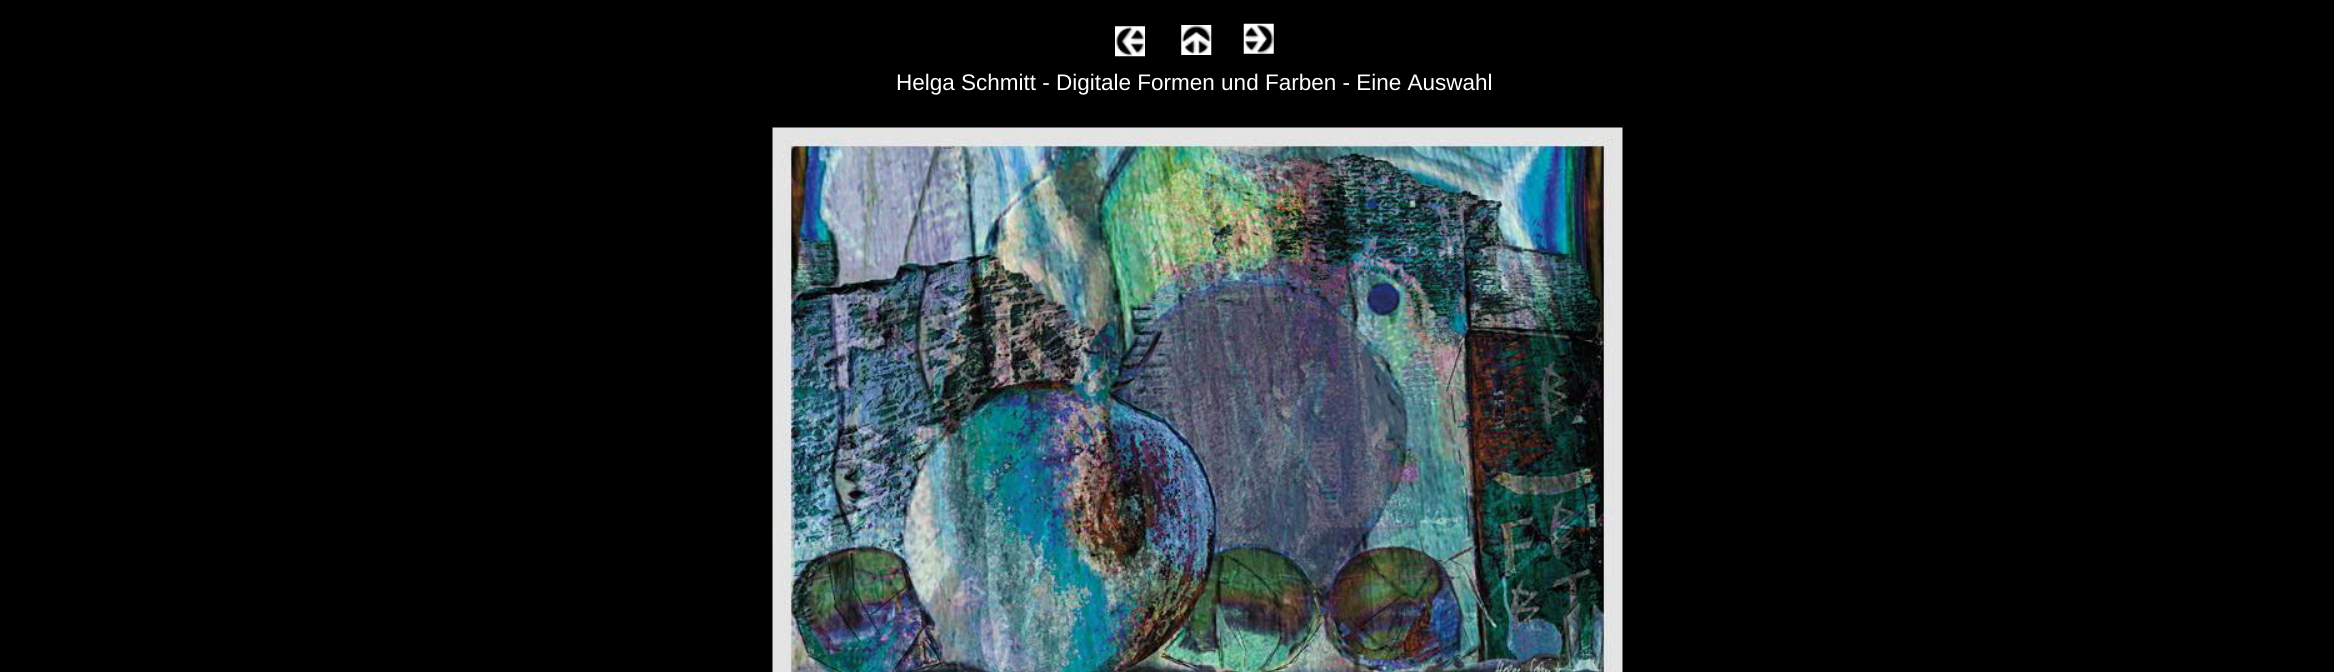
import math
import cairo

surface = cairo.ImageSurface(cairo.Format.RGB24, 2334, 672)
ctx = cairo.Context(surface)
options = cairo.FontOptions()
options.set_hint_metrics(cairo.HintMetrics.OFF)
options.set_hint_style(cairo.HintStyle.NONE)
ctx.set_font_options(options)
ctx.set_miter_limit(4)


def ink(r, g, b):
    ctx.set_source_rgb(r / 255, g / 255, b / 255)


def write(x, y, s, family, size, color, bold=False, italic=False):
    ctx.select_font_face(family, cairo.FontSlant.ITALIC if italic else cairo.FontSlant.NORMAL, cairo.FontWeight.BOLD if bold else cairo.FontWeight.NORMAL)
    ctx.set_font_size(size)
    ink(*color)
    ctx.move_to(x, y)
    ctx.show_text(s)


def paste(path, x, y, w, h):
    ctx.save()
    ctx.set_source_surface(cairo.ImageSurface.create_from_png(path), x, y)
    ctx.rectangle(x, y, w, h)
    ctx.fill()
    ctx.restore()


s1 = dict(family="Liberation Sans", size=22.5, color=(255, 255, 255))

ink(0, 0, 0)
ctx.paint()
paste("pic1.png", 1115, 26, 30, 31)
paste("pic2.png", 1181, 25, 31, 30)
paste("pic3.png", 1243, 23, 31, 31)
write(896, 90, "Helga Schmitt - Digitale Formen und Farben - Eine Auswahl", **s1)
paste("pic4.png", 772, 127, 851, 545)
surface.write_to_png("screenshot.png")
